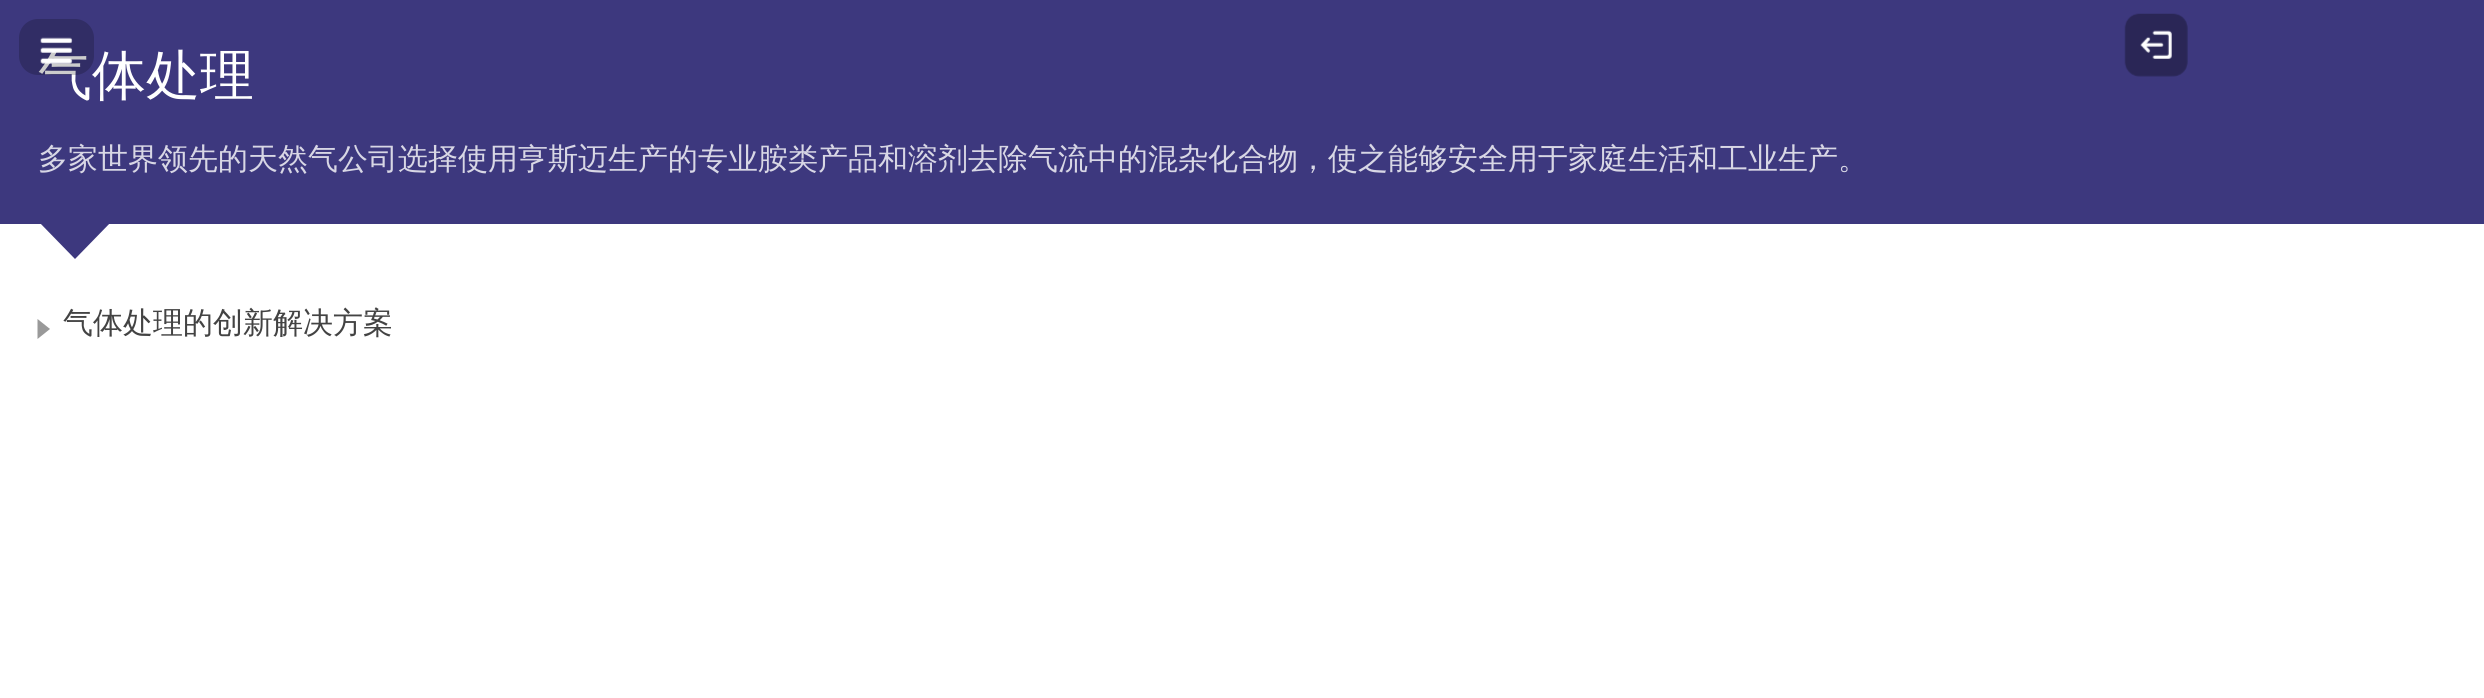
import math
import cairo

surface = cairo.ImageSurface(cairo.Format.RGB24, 2484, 698)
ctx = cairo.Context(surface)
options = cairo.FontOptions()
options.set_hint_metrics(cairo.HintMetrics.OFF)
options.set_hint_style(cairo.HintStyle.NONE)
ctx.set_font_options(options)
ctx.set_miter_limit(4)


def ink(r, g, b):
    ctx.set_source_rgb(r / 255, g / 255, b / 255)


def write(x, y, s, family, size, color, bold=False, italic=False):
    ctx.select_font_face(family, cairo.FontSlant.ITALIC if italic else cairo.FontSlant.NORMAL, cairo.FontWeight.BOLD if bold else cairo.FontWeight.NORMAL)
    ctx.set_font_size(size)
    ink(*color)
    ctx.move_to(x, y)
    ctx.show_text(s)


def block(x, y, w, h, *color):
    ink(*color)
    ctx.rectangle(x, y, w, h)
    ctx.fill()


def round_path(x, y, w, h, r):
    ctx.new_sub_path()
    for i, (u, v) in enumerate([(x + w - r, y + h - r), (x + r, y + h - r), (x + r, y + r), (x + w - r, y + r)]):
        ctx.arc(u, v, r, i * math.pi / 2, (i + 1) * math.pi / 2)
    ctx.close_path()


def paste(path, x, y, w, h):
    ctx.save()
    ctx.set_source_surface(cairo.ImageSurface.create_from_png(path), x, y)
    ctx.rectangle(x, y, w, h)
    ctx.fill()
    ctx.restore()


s1 = dict(family="WenQuanYi Zen Hei Medium", size=54, color=(255, 255, 255))
s2 = dict(family="WenQuanYi Zen Hei Medium", size=30, color=(216, 215, 229))
s3 = dict(family="WenQuanYi Zen Hei Medium", size=30, color=(67, 67, 67))

ink(255, 255, 255)
ctx.paint()
block(0, 0, 2484, 224, 61, 56, 126)
write(38, 94, "气体处理", **s1)
ctx.set_source_rgba(0, 0, 0, 0.2)
round_path(19, 19, 75, 56, 19)
ctx.fill()
paste("pic1.png", 40, 37, 33, 27)
paste("pic2.png", 2124, 13, 64, 64)
write(38, 169, "多家世界领先的天然气公司选择使用亨斯迈生产的专业胺类产品和溶剂去除气流中的混杂化合物，使之能够安全用于家庭生活和工业生产。", **s2)
ink(61, 56, 126)
ctx.new_path()
ctx.move_to(38, 221)
ctx.line_to(112, 221)
ctx.line_to(75, 259)
ctx.close_path()
ctx.fill()
ink(153, 153, 153)
ctx.new_path()
ctx.move_to(37.5, 339)
ctx.line_to(37.5, 319)
ctx.line_to(50, 329)
ctx.close_path()
ctx.fill()
write(63, 333, "气体处理的创新解决方案", **s3)
surface.write_to_png("screenshot.png")
